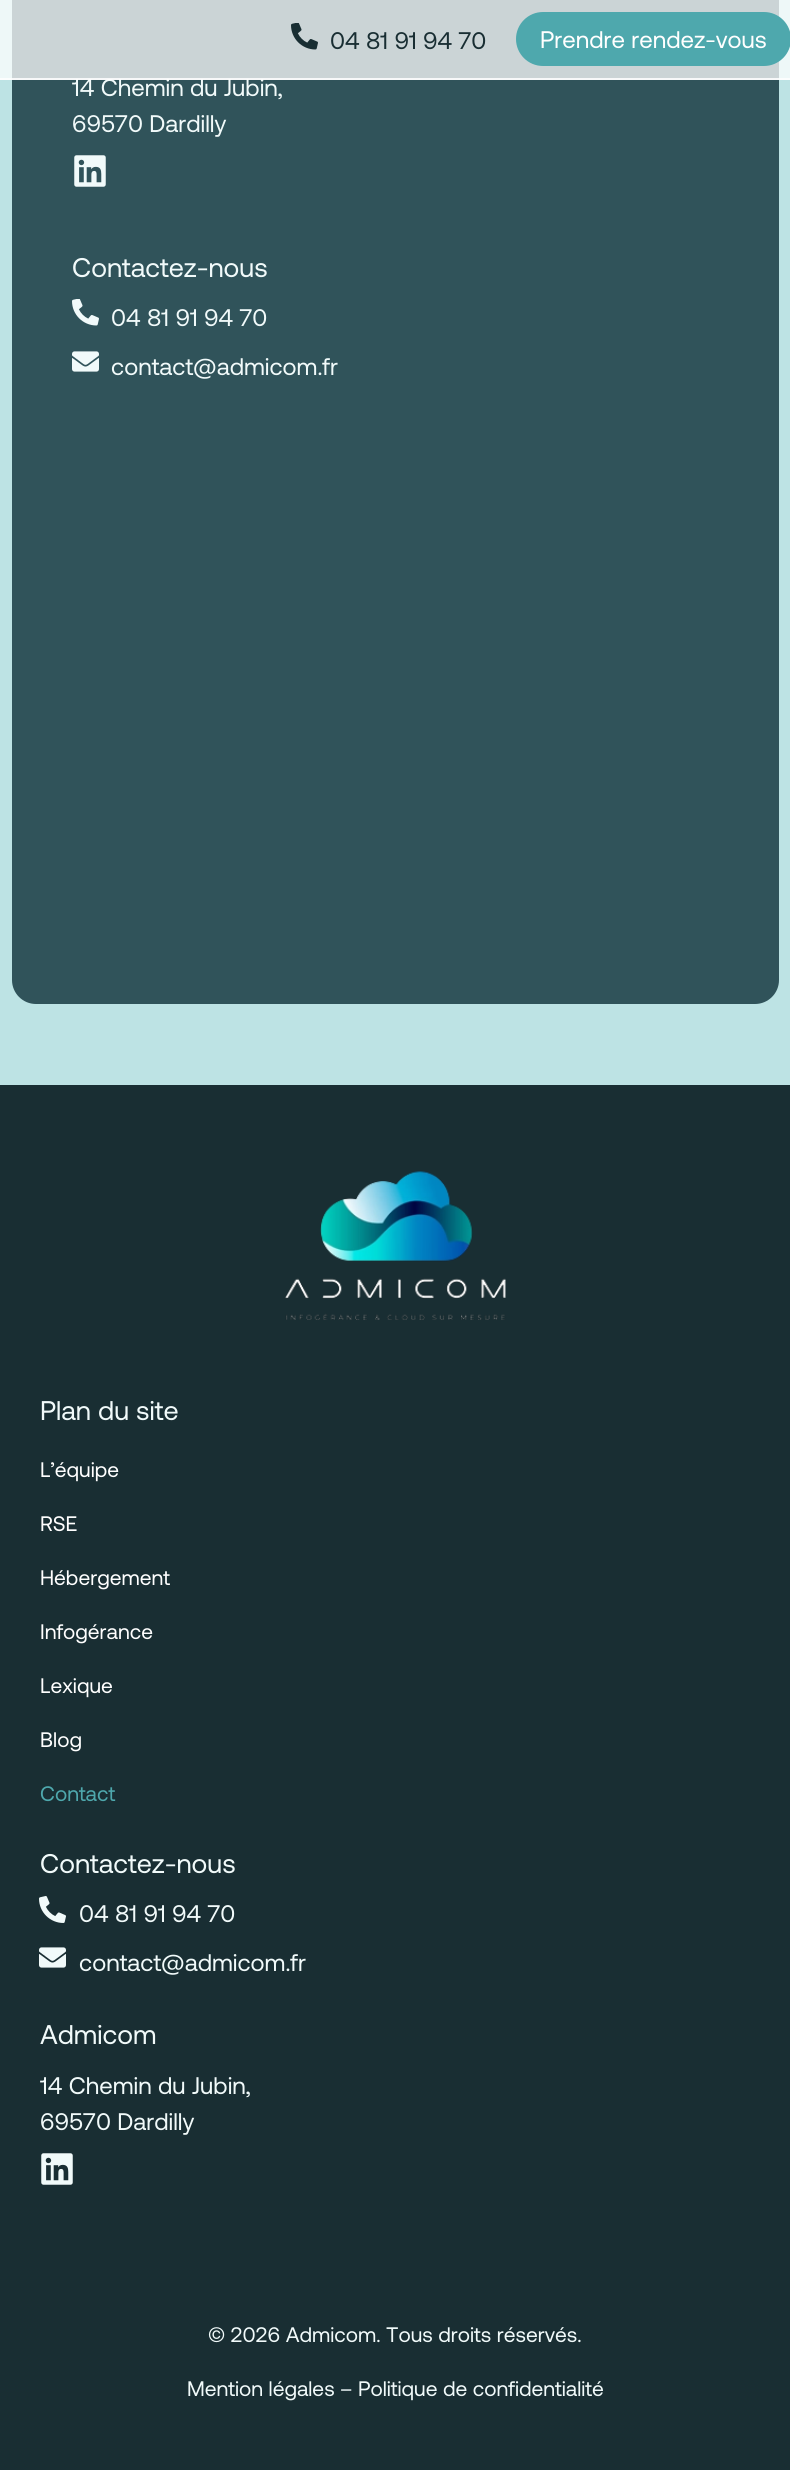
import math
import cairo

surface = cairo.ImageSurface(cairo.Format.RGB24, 790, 2470)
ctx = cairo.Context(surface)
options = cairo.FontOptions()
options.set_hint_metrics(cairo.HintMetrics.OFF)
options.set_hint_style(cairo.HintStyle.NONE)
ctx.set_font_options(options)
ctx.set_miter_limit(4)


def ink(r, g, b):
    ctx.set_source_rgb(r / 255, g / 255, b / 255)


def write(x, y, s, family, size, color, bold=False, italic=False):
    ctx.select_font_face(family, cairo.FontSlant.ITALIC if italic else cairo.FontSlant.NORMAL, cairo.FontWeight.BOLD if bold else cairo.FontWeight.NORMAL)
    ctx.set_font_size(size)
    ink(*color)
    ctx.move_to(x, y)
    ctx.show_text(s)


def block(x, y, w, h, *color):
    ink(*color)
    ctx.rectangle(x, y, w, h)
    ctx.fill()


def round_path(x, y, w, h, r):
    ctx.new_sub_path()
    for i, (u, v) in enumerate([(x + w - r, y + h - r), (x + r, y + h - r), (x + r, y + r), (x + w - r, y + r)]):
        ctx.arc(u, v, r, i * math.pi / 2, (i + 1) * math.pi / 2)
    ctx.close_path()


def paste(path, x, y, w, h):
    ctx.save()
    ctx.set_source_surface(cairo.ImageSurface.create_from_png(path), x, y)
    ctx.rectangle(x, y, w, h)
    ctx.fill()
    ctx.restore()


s1 = dict(family="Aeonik", size=24, color=(241, 250, 250))
s2 = dict(family="Aeonik", size=24, color=(25, 46, 51))
s3 = dict(family="Aeonik", size=24, color=(255, 255, 255))
s4 = dict(family="Aeonik", size=27, color=(241, 250, 250))
s5 = dict(family="Aeonik", size=21, color=(255, 255, 255))
s6 = dict(family="Aeonik", size=21, color=(78, 168, 173))
s7 = dict(family="Aeonik", size=21, color=(241, 250, 250))

ink(189, 227, 228)
ctx.paint()
ink(48, 83, 90)
round_path(12, -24, 767, 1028, 24)
ctx.fill()
write(72, 96, "14 Chemin du Jubin,", **s1)
ctx.set_source_rgba(1, 1, 1, 0.75)
ctx.rectangle(0, 0, 790, 80)
ctx.fill()
ctx.set_source_rgba(1, 1, 1, 0.84)
ctx.rectangle(0, 78, 790, 2)
ctx.fill()
paste("pic1.png", 291, 23, 27, 27)
write(330, 49, "04 81 91 94 70", **s2)
ink(78, 168, 173)
round_path(516, 12, 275, 54, 27)
ctx.fill()
write(540, 48, "Prendre rendez-vous", **s3)
write(72, 132, "69570 Dardilly", **s1)
paste("pic2.png", 74, 155, 32, 32)
write(72, 277, "Contactez-nous", **s4)
paste("pic3.png", 72, 299, 27, 27)
write(111, 326, "04 81 91 94 70", **s1)
paste("pic4.png", 72, 351, 27, 21)
write(111, 375, "contact@admicom.fr", **s1)
block(0, 1085, 790, 1385, 25, 46, 51)
paste("pic5.png", 285, 1171, 221, 149)
write(40, 1420, "Plan du site", **s4)
write(40, 1477, "L’équipe", **s5)
write(40, 1531, "RSE", **s5)
write(40, 1585, "Hébergement", **s5)
write(40, 1639, "Infogérance", **s5)
write(40, 1693, "Lexique", **s5)
write(40, 1747, "Blog", **s5)
write(40, 1801, "Contact", **s6)
write(40, 1873, "Contactez-nous", **s4)
paste("pic6.png", 39, 1896, 27, 27)
write(79, 1922, "04 81 91 94 70", **s1)
paste("pic7.png", 39, 1947, 27, 21)
write(79, 1971, "contact@admicom.fr", **s1)
write(40, 2044, "Admicom", **s4)
write(40, 2094, "14 Chemin du Jubin,", **s1)
write(40, 2130, "69570 Dardilly", **s1)
paste("pic8.png", 41, 2153, 32, 32)
write(208, 2342, "© 2026 Admicom. Tous droits réservés.", **s7)
write(187, 2396, "Mention légales – Politique de confidentialité", **s7)
surface.write_to_png("screenshot.png")
